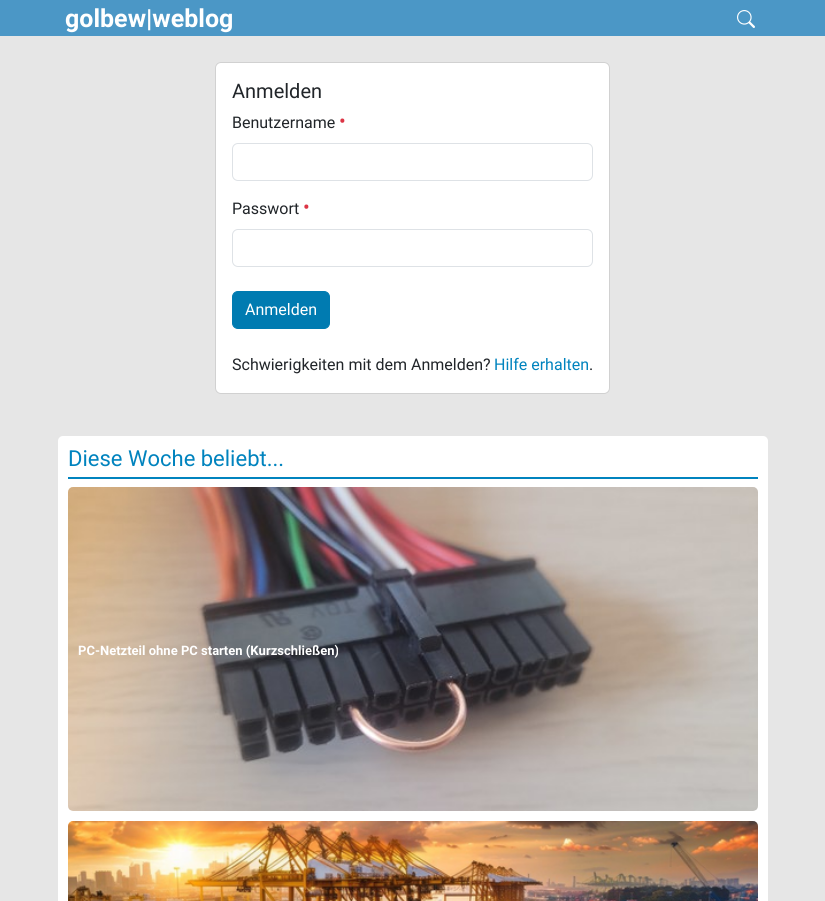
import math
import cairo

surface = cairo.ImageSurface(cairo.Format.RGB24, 825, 901)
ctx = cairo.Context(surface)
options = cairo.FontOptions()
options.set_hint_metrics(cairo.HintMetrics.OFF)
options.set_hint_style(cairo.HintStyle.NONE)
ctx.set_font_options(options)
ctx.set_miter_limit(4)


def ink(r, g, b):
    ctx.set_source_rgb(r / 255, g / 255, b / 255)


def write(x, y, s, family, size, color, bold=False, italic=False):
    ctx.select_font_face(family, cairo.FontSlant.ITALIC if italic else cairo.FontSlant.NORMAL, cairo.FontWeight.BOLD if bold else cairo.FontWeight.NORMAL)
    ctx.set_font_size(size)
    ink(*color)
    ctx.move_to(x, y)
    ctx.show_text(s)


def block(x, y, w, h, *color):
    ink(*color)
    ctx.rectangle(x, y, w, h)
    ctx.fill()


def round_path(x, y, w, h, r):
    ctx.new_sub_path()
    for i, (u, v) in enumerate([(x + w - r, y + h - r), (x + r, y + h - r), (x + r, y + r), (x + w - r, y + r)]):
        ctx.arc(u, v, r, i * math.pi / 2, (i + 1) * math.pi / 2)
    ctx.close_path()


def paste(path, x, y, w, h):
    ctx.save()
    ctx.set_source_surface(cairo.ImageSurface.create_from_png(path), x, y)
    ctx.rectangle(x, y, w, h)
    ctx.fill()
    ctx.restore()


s1 = dict(family="Roboto", size=25, color=(255, 255, 255), bold=True)
s2 = dict(family="Roboto", size=20, color=(33, 37, 41))
s3 = dict(family="Roboto", size=16, color=(33, 37, 41))
s4 = dict(family="Roboto", size=20, color=(220, 53, 69))
s5 = dict(family="Roboto", size=16, color=(255, 255, 255))
s6 = dict(family="Roboto", size=16, color=(0, 131, 190))
s7 = dict(family="Roboto", size=22, color=(0, 131, 190))
s8 = dict(family="Roboto", size=13, color=(255, 255, 255), bold=True)

ink(230, 230, 230)
ctx.paint()
block(0, 0, 825, 36, 75, 151, 198)
write(65, 27, "golbew|weblog", **s1)
paste("pic1.png", 737, 10, 18, 18)
round_path(215, 62, 395, 332, 6)
ctx.fill()
round_path(215.5, 62.5, 394, 331, 5.5)
ctx.set_source_rgba(0, 0, 0, 0.18)
ctx.set_line_width(1)
ctx.stroke()
write(232, 98, "Anmelden", **s2)
write(232, 128, "Benutzername", **s3)
write(339, 128, "•", **s4)
round_path(232.5, 143.5, 360, 37, 5.5)
ink(222, 226, 230)
ctx.stroke()
write(232, 214, "Passwort", **s3)
write(303, 214, "•", **s4)
round_path(232.5, 229.5, 360, 37, 5.5)
ink(222, 226, 230)
ctx.stroke()
ink(0, 123, 177)
round_path(232.5, 291.5, 97, 37, 5.5)
ctx.fill_preserve()
ctx.stroke()
write(245, 315, "Anmelden", **s5)
write(232, 370, "Schwierigkeiten mit dem Anmelden?", **s3)
write(494, 370, "Hilfe erhalten", **s6)
write(589, 370, ".", **s3)
ink(255, 255, 255)
round_path(58, 436, 710, 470, 5)
ctx.fill()
block(68, 477, 690, 2, 0, 131, 190)
write(68, 466, "Diese Woche beliebt...", **s7)
paste("pic2.png", 68, 487, 690, 324)
write(78, 655, "PC-Netzteil ohne PC starten (Kurzschließen)", **s8)
paste("pic3.png", 68, 821, 690, 80)
surface.write_to_png("screenshot.png")
